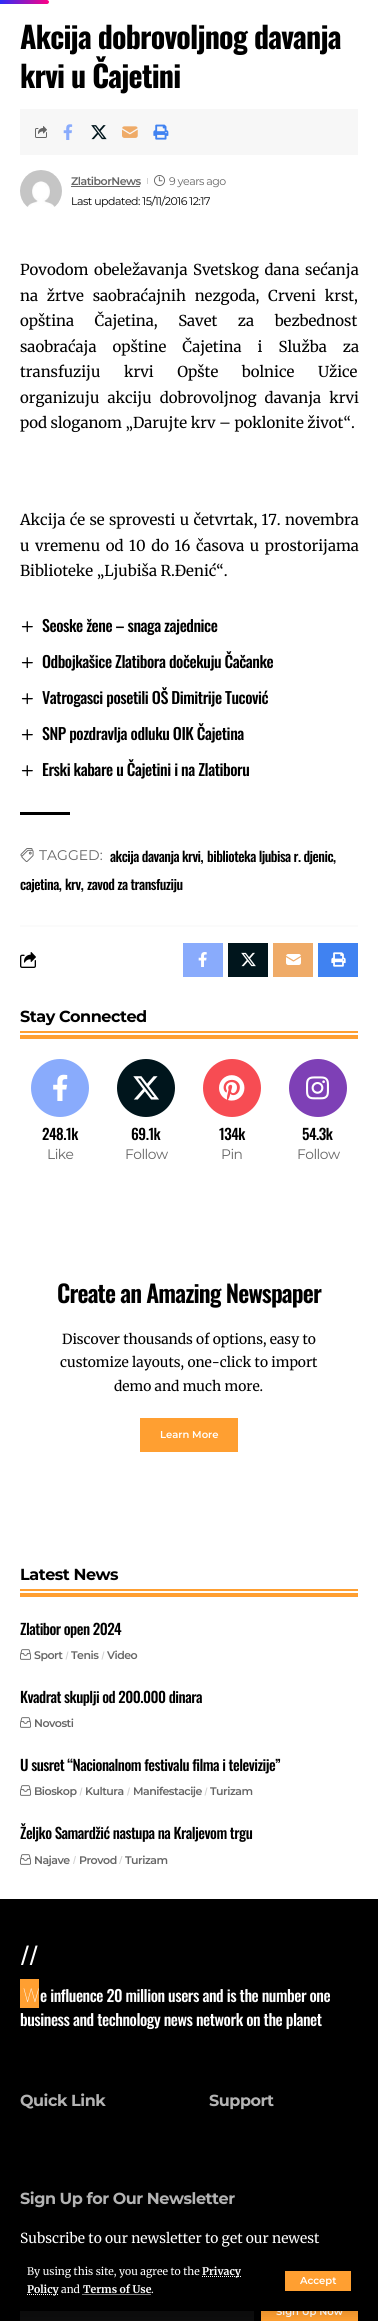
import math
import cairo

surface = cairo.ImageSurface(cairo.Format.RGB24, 378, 2321)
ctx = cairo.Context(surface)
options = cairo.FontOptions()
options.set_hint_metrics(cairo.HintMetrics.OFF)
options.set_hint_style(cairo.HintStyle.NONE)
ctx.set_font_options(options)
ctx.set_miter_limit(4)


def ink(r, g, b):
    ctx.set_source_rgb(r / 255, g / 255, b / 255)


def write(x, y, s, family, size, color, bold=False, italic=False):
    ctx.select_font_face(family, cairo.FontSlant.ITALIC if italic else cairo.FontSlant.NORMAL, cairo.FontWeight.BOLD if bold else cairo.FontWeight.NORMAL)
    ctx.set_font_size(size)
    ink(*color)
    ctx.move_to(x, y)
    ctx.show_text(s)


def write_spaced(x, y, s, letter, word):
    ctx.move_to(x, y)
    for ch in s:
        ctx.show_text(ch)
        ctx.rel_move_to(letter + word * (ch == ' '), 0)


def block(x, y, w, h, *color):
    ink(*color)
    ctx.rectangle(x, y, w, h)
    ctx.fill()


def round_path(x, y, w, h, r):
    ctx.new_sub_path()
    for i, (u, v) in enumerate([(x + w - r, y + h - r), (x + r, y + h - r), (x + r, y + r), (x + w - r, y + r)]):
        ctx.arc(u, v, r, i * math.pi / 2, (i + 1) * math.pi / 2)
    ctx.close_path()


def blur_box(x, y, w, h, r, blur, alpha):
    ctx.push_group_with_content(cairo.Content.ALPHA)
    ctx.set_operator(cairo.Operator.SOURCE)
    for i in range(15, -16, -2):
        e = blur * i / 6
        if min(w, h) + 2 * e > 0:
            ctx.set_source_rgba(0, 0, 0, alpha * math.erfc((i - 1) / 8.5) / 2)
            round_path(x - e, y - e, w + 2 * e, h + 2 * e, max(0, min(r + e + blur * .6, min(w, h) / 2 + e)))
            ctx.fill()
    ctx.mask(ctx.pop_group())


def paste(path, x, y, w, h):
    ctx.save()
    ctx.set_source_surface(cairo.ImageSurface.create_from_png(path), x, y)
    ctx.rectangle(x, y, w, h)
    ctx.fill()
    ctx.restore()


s1 = dict(family="Merriweather", size=15, color=(0, 0, 0))
s2 = dict(family="Montserrat", size=14, color=(102, 102, 102))
s3 = dict(family="Merriweather", size=13.8, color=(0, 0, 0))
s4 = dict(family="Montserrat SemiBold", size=10, color=(255, 255, 255))
s5 = dict(family="Merriweather", size=13.8, color=(255, 255, 255))
s6 = dict(family="Merriweather", size=10.5, color=(255, 255, 255))
s7 = dict(family="Merriweather", size=10.5, color=(255, 255, 255), bold=True)

ink(255, 255, 255)
ctx.paint()
ctx.select_font_face("Oswald", cairo.FontSlant.NORMAL, cairo.FontWeight.BOLD)
ctx.set_font_size(30)
ink(0, 0, 0)
write_spaced(20, 49, "Akcija dobrovoljnog davanja", -0.8, 0)
write_spaced(20, 88, "krvi u Čajetini", -0.8, 0)
block(20, 109, 338, 46, 247, 247, 247)
paste("pic1.png", 35, 126, 12, 12)
paste("pic2.png", 63, 124, 10, 16)
paste("pic3.png", 91, 125, 16, 15)
paste("pic4.png", 122, 126, 16, 12)
paste("pic5.png", 153, 124, 16, 16)
paste("pic6.png", 20, 170, 42, 37)
ctx.select_font_face("Montserrat SemiBold")
ctx.set_font_size(11)
ink(102, 102, 102)
write_spaced(71, 185, "ZlatiborNews", -0.5, 0)
block(71, 186, 69, 1, 102, 102, 102)
block(147, 178, 1, 6, 209, 209, 209)
paste("pic7.png", 154, 175, 11, 11)
ctx.select_font_face("Montserrat")
ink(102, 102, 102)
write_spaced(169, 185, "9 years ago", -0.5, 0)
ink(0, 0, 0)
write_spaced(71, 205, "Last updated: 15/11/2016 12:17", -0.5, 0)
ctx.select_font_face("Merriweather")
ctx.set_font_size(15)
write_spaced(20, 275, "Povodom obeležavanja Svetskog dana sećanja", 0, 2)
write_spaced(20, 301, "na žrtve saobraćajnih nezgoda, Crveni krst,", 0, 5.25)
write_spaced(20, 326, "opština Čajetina, Savet za bezbednost", 0, 17)
write_spaced(20, 352, "saobraćaja opštine Čajetina i Služba za", 0, 12.5)
write_spaced(20, 377, "transfuziju krvi Opšte bolnice Užice", 0, 20)
write_spaced(20, 403, "organizuju akciju dobrovoljnog davanja krvi", 0, 4.5)
write(20, 428, "pod sloganom „Darujte krv – poklonite život“.", **s1)
write_spaced(20, 525, "Akcija će se sprovesti u četvrtak, 17. novembra", 0, 0.75)
write_spaced(20, 551, "u vremenu od 10 do 16 časova u prostorijama", 0, 2)
write(20, 576, "Biblioteke „Ljubiša R.Đenić“.", **s1)
paste("pic8.png", 21, 621, 12, 12)
ctx.select_font_face("Oswald Medium")
ctx.set_font_size(16)
write_spaced(42, 632, "Seoske žene – snaga zajednice", -0.45, 0)
paste("pic8.png", 21, 657, 12, 12)
write_spaced(42, 668, "Odbojkašice Zlatibora dočekuju Čačanke", -0.45, 0)
paste("pic8.png", 21, 693, 12, 12)
write_spaced(42, 704, "Vatrogasci posetili OŠ Dimitrije Tucović", -0.45, 0)
paste("pic8.png", 21, 729, 12, 12)
write_spaced(42, 740, "SNP pozdravlja odluku OIK Čajetina", -0.45, 0)
paste("pic8.png", 21, 765, 12, 12)
write_spaced(42, 776, "Erski kabare u Čajetini i na Zlatiboru", -0.45, 0)
block(20, 812, 50, 3, 0, 0, 0)
paste("pic9.png", 20, 848, 14, 14)
write(39, 860, "TAGGED:", **s2)
ctx.select_font_face("Oswald Medium")
ink(0, 0, 0)
write_spaced(110, 862, "akcija davanja krvi,", -0.5, 0)
write_spaced(207, 862, "biblioteka ljubisa r. djenic,", -0.5, 0)
write_spaced(20, 890, "cajetina,", -0.5, 0)
write_spaced(65, 890, "krv,", -0.5, 0)
write_spaced(87, 890, "zavod za transfuziju", -0.5, 0)
block(20, 925, 338, 2, 251, 251, 251)
paste("pic10.png", 20, 952, 16, 16)
block(183, 943, 40, 34, 137, 171, 252)
paste("pic11.png", 198, 952, 9, 15)
block(228, 943, 40, 34, 0, 21, 28)
paste("pic12.png", 241, 952, 15, 15)
block(273, 943, 40, 34, 239, 171, 104)
paste("pic13.png", 286, 954, 15, 11)
block(318, 943, 40, 34, 64, 130, 241)
paste("pic14.png", 331, 952, 15, 15)
block(20, 1035, 338, 4, 255, 159, 49)
ctx.select_font_face("Montserrat", cairo.FontSlant.NORMAL, cairo.FontWeight.BOLD)
ctx.set_font_size(16)
ink(0, 0, 0)
write_spaced(20, 1022, "Stay Connected", -0.45, 0)
block(20, 1031, 338, 2, 255, 159, 49)
ink(137, 171, 252)
ctx.new_path()
ctx.arc(60, 1088, 29, 0, 2 * math.pi)
ctx.fill()
paste("pic15.png", 53, 1074, 15, 27)
ctx.select_font_face("Oswald Medium")
ctx.set_font_size(15)
ink(0, 0, 0)
write_spaced(42, 1140, "248.1k", -0.5, 0)
ctx.select_font_face("Montserrat")
ctx.set_font_size(13.8)
ink(102, 102, 102)
write_spaced(47, 1159, "Like", -0.5, 0)
ink(0, 21, 28)
ctx.new_path()
ctx.arc(146, 1088, 29, 0, 2 * math.pi)
ctx.fill()
paste("pic16.png", 133, 1076, 26, 24)
ctx.select_font_face("Oswald Medium")
ctx.set_font_size(15)
ink(0, 0, 0)
write_spaced(131, 1140, "69.1k", -0.5, 0)
ctx.select_font_face("Montserrat")
ctx.set_font_size(13.8)
ink(102, 102, 102)
write_spaced(125, 1159, "Follow", -0.5, 0)
ink(247, 76, 83)
ctx.new_path()
ctx.arc(232, 1088, 29, 0, 2 * math.pi)
ctx.fill()
paste("pic17.png", 219, 1075, 26, 26)
ctx.select_font_face("Oswald Medium")
ctx.set_font_size(15)
ink(0, 0, 0)
write_spaced(219, 1140, "134k", -0.5, 0)
ctx.select_font_face("Montserrat")
ctx.set_font_size(13.8)
ink(102, 102, 102)
write_spaced(221, 1159, "Pin", -0.5, 0)
ink(126, 64, 182)
ctx.new_path()
ctx.arc(318, 1088, 29, 0, 2 * math.pi)
ctx.fill()
paste("pic18.png", 306, 1076, 23, 24)
ctx.select_font_face("Oswald Medium")
ctx.set_font_size(15)
ink(0, 0, 0)
write_spaced(302, 1140, "54.3k", -0.5, 0)
ctx.select_font_face("Montserrat")
ctx.set_font_size(13.8)
ink(102, 102, 102)
write_spaced(297, 1159, "Follow", -0.5, 0)
ctx.select_font_face("Oswald SemiBold")
ctx.set_font_size(24)
ink(0, 0, 0)
write_spaced(57, 1303, "Create an Amazing Newspaper", -0.85, 0)
write(62, 1344, "Discover thousands of options, easy to", **s3)
write(60, 1367, "customize layouts, one-click to import", **s3)
write(114, 1391, "demo and much more.", **s3)
block(140, 1418, 98, 34, 255, 159, 49)
write(160, 1438, "Learn More", **s4)
block(20, 1593, 338, 4, 255, 159, 49)
ctx.select_font_face("Montserrat", cairo.FontSlant.NORMAL, cairo.FontWeight.BOLD)
ctx.set_font_size(16)
ink(0, 0, 0)
write_spaced(20, 1580, "Latest News", -0.45, 0)
block(20, 1589, 338, 2, 255, 159, 49)
ctx.select_font_face("Oswald Medium")
ctx.set_font_size(15)
ink(0, 0, 0)
write_spaced(20, 1635, "Zlatibor open 2024", -0.5, 0)
paste("pic19.png", 20, 1649, 11, 11)
ctx.select_font_face("Montserrat SemiBold")
ctx.set_font_size(11)
ink(102, 102, 102)
write_spaced(34, 1659, "Sport", -0.5, 0)
write_spaced(71, 1659, "Tenis", -0.5, 0)
ink(209, 209, 209)
ctx.new_path()
ctx.move_to(67.5, 1651.5)
ctx.line_to(68.5, 1651.5)
ctx.line_to(66.5, 1659.5)
ctx.line_to(65.5, 1659.5)
ctx.close_path()
ctx.move_to(103.5, 1651.5)
ctx.line_to(104.5, 1651.5)
ctx.line_to(102.5, 1659.5)
ctx.line_to(101.5, 1659.5)
ctx.close_path()
ctx.fill()
ink(102, 102, 102)
write_spaced(107, 1659, "Video", -0.5, 0)
ctx.select_font_face("Oswald Medium")
ctx.set_font_size(15)
ink(0, 0, 0)
write_spaced(20, 1703, "Kvadrat skuplji od 200.000 dinara", -0.5, 0)
paste("pic19.png", 20, 1717, 11, 11)
ctx.select_font_face("Montserrat SemiBold")
ctx.set_font_size(11)
ink(102, 102, 102)
write_spaced(34, 1727, "Novosti", -0.5, 0)
ctx.select_font_face("Oswald Medium")
ctx.set_font_size(15)
ink(0, 0, 0)
write_spaced(20, 1771, "U susret “Nacionalnom festivalu filma i televizije”", -0.5, 0)
paste("pic19.png", 20, 1785, 11, 11)
ctx.select_font_face("Montserrat SemiBold")
ctx.set_font_size(11)
ink(102, 102, 102)
write_spaced(34, 1795, "Bioskop", -0.5, 0)
write_spaced(85, 1795, "Kultura", -0.5, 0)
ink(209, 209, 209)
ctx.new_path()
ctx.move_to(81.5, 1787.5)
ctx.line_to(82.5, 1787.5)
ctx.line_to(80.5, 1795.5)
ctx.line_to(79.5, 1795.5)
ctx.close_path()
ctx.move_to(129, 1787.5)
ctx.line_to(130, 1787.5)
ctx.line_to(128, 1795.5)
ctx.line_to(127, 1795.5)
ctx.close_path()
ctx.fill()
ink(102, 102, 102)
write_spaced(133, 1795, "Manifestacije", -0.5, 0)
ink(209, 209, 209)
ctx.new_path()
ctx.move_to(206.5, 1787.5)
ctx.line_to(207.5, 1787.5)
ctx.line_to(205.5, 1795.5)
ctx.line_to(204.5, 1795.5)
ctx.close_path()
ctx.fill()
ink(102, 102, 102)
write_spaced(210, 1795, "Turizam", -0.5, 0)
ctx.select_font_face("Oswald Medium")
ctx.set_font_size(15)
ink(0, 0, 0)
write_spaced(20, 1839, "Željko Samardžić nastupa na Kraljevom trgu", -0.5, 0)
paste("pic19.png", 20, 1854, 11, 11)
ctx.select_font_face("Montserrat SemiBold")
ctx.set_font_size(11)
ink(102, 102, 102)
write_spaced(34, 1864, "Najave", -0.5, 0)
write_spaced(79, 1864, "Provod", -0.5, 0)
ink(209, 209, 209)
ctx.new_path()
ctx.move_to(75, 1856)
ctx.line_to(76, 1856)
ctx.line_to(74, 1864)
ctx.line_to(73, 1864)
ctx.close_path()
ctx.move_to(121.5, 1856)
ctx.line_to(122.5, 1856)
ctx.line_to(120, 1864)
ctx.line_to(119, 1864)
ctx.close_path()
ctx.fill()
ink(102, 102, 102)
write_spaced(125, 1864, "Turizam", -0.5, 0)
block(0, 1899, 378, 422, 0, 0, 0)
ctx.select_font_face("Oswald SemiBold")
ctx.set_font_size(24)
ink(255, 255, 255)
write_spaced(20, 1965, "//", -1, 0)
block(20, 1979, 19, 29, 255, 159, 49)
ctx.select_font_face("Noto Sans Thin")
ctx.set_font_size(19)
ink(255, 255, 255)
write_spaced(23, 2002, "W", -0.45, 0)
ctx.select_font_face("Oswald Medium")
ctx.set_font_size(16)
write_spaced(40, 2002, "e influence 20 million users and is the number one", -0.45, 0)
write_spaced(20, 2026, "business and technology news network on the planet", -0.45, 0)
ctx.select_font_face("Montserrat", cairo.FontSlant.NORMAL, cairo.FontWeight.BOLD)
ink(179, 179, 179)
write_spaced(20, 2106, "Quick Link", -0.45, 0)
write_spaced(209, 2106, "Support", -0.45, 0)
write_spaced(20, 2204, "Sign Up for Our Newsletter", -0.45, 0)
write(20, 2243, "Subscribe to our newsletter to get our newest", **s5)
block(20, 2311, 234, 10, 13, 13, 13)
block(261, 2311, 97, 10, 255, 159, 49)
write(276, 2315, "Sign Up Now", **s4)
gradient = cairo.LinearGradient(49, 2, 0, 2)
gradient.add_color_stop_rgba(0, 1, 0, 0.518, 1)
gradient.add_color_stop_rgba(1, 0.173, 0.173, 0.973, 1)
ctx.set_source(gradient)
ctx.new_path()
ctx.move_to(0, 0)
ctx.line_to(47, 0)
ctx.curve_to(48, 0, 49, 1, 49, 2)
ctx.curve_to(49, 3, 48, 4, 47, 4)
ctx.line_to(0, 4)
ctx.close_path()
ctx.fill()
ink(0, 0, 0)
blur_box(15, 2254, 348, 60, 0, 6, 0.12)
block(276, 2307, 67, 4, 0, 0, 0)
write(27, 2275, "By using this site, you agree to the", **s6)
ctx.new_path()
ctx.move_to(202, 2276.5)
ctx.line_to(241, 2276.5)
ctx.set_line_width(1)
ctx.set_dash([1, 1])
ctx.stroke()
write(202, 2275, "Privacy", **s7)
ctx.new_path()
ctx.move_to(27, 2294.5)
ctx.line_to(59, 2294.5)
ctx.stroke()
write(27, 2293, "Policy", **s7)
write(61, 2293, "and", **s6)
write(83, 2293, "Terms of Use", **s7)
ctx.new_path()
ctx.move_to(82.5, 2294.5)
ctx.line_to(151, 2294.5)
ctx.stroke()
write(151, 2293, ".", **s6)
block(285, 2271, 66, 20, 255, 159, 49)
write(300, 2284, "Accept", **s4)
surface.write_to_png("screenshot.png")
